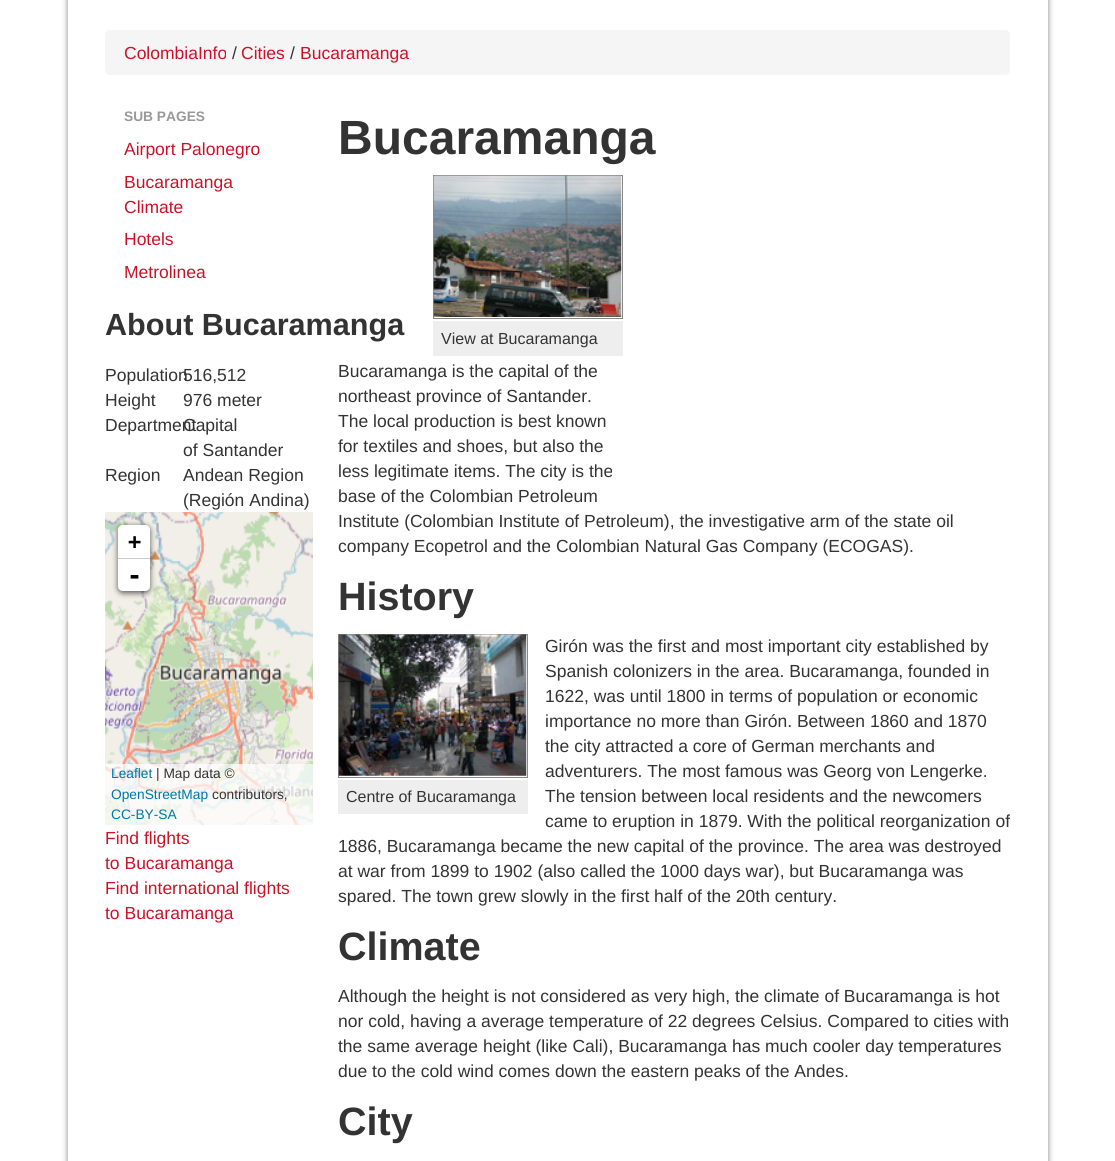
import math
import cairo

surface = cairo.ImageSurface(cairo.Format.RGB24, 1115, 1161)
ctx = cairo.Context(surface)
options = cairo.FontOptions()
options.set_hint_metrics(cairo.HintMetrics.OFF)
options.set_hint_style(cairo.HintStyle.NONE)
ctx.set_font_options(options)
ctx.set_miter_limit(4)


def ink(r, g, b):
    ctx.set_source_rgb(r / 255, g / 255, b / 255)


def write(x, y, s, family, size, color, bold=False, italic=False):
    ctx.select_font_face(family, cairo.FontSlant.ITALIC if italic else cairo.FontSlant.NORMAL, cairo.FontWeight.BOLD if bold else cairo.FontWeight.NORMAL)
    ctx.set_font_size(size)
    ink(*color)
    ctx.move_to(x, y)
    ctx.show_text(s)


def block(x, y, w, h, *color):
    ink(*color)
    ctx.rectangle(x, y, w, h)
    ctx.fill()


def round_path(x, y, w, h, r):
    ctx.new_sub_path()
    for i, (u, v) in enumerate([(x + w - r, y + h - r), (x + r, y + h - r), (x + r, y + r), (x + w - r, y + r)]):
        ctx.arc(u, v, r, i * math.pi / 2, (i + 1) * math.pi / 2)
    ctx.close_path()


def blur_box(x, y, w, h, r, blur, alpha):
    ctx.push_group_with_content(cairo.Content.ALPHA)
    ctx.set_operator(cairo.Operator.SOURCE)
    for i in range(15, -16, -2):
        e = blur * i / 6
        if min(w, h) + 2 * e > 0:
            ctx.set_source_rgba(0, 0, 0, alpha * math.erfc((i - 1) / 8.5) / 2)
            round_path(x - e, y - e, w + 2 * e, h + 2 * e, max(0, min(r + e + blur * .6, min(w, h) / 2 + e)))
            ctx.fill()
    ctx.mask(ctx.pop_group())


def paste(path, x, y, w, h):
    ctx.save()
    ctx.set_source_surface(cairo.ImageSurface.create_from_png(path), x, y)
    ctx.rectangle(x, y, w, h)
    ctx.fill()
    ctx.restore()


s1 = dict(family="Liberation Sans", size=17.5, color=(206, 17, 39))
s2 = dict(family="Liberation Sans", size=17.5, color=(51, 51, 51))
s3 = dict(family="Liberation Sans", size=13.75, color=(153, 153, 153), bold=True)
s4 = dict(family="Liberation Sans", size=30.6, color=(51, 51, 51), bold=True)
s5 = dict(family="DejaVu Sans Mono", size=22, color=(0, 0, 0), bold=True)
s6 = dict(family="DejaVu Sans Mono", size=25, color=(0, 0, 0), bold=True)
s7 = dict(family="Liberation Sans", size=13.75, color=(0, 120, 168))
s8 = dict(family="Liberation Sans", size=13.75, color=(51, 51, 51))
s9 = dict(family="Liberation Sans", size=48, color=(51, 51, 51), bold=True)
s10 = dict(family="Liberation Sans", size=16, color=(51, 51, 51))
s11 = dict(family="Liberation Sans", size=39.5, color=(51, 51, 51), bold=True)

ink(255, 255, 255)
ctx.paint()
ink(0, 0, 0)
blur_box(68, -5, 980, 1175, 0, 3, 0.5)
block(68, 0, 980, 1161, 255, 255, 255)
ink(245, 245, 245)
round_path(105, 30, 905, 45, 5)
ctx.fill()
write(124, 59, "ColombiaInfo", **s1)
write(232, 59, "/", **s2)
write(241, 59, "Cities", **s1)
write(290, 59, "/", **s2)
write(300, 59, "Bucaramanga", **s1)
write(124, 121, "SUB PAGES", **s3)
write(124, 155, "Airport Palonegro", **s1)
write(124, 188, "Bucaramanga", **s1)
write(124, 213, "Climate", **s1)
write(124, 245, "Hotels", **s1)
write(124, 278, "Metrolinea", **s1)
write(105, 335, "About Bucaramanga", **s4)
write(105, 381, "Population", **s2)
write(183, 381, "516,512", **s2)
write(105, 406, "Height", **s2)
write(183, 406, "976 meter", **s2)
write(105, 431, "Department", **s2)
write(183, 431, "Capital", **s2)
write(183, 456, "of Santander", **s2)
write(105, 481, "Region", **s2)
write(183, 481, "Andean Region", **s2)
write(183, 506, "(Región Andina)", **s2)
paste("pic1.png", 105, 512, 105, 49)
paste("pic2.png", 210, 512, 103, 49)
paste("pic3.png", 105, 561, 105, 264)
paste("pic4.png", 210, 561, 103, 264)
ink(0, 0, 0)
blur_box(118, 526, 32, 67, 5, 3, 0.65)
ink(255, 255, 255)
ctx.new_path()
ctx.move_to(123, 525)
ctx.line_to(145, 525)
ctx.curve_to(148, 525, 150, 527, 150, 530)
ctx.line_to(150, 559)
ctx.line_to(118, 559)
ctx.line_to(118, 530)
ctx.curve_to(118, 527, 120, 525, 123, 525)
ctx.close_path()
ctx.fill()
block(118, 558, 32, 1, 204, 204, 204)
write(128, 549, "+", **s5)
ink(255, 255, 255)
ctx.new_path()
ctx.move_to(118, 559)
ctx.line_to(150, 559)
ctx.line_to(150, 586)
ctx.curve_to(150, 589, 148, 591, 145, 591)
ctx.line_to(123, 591)
ctx.curve_to(120, 591, 118, 589, 118, 586)
ctx.close_path()
ctx.fill()
write(127, 584, "-", **s6)
ctx.set_source_rgba(1, 1, 1, 0.7)
ctx.rectangle(105, 764, 208, 61)
ctx.fill()
write(111, 778, "Leaflet", **s7)
write(156, 778, "| Map data ©", **s8)
write(111, 799, "OpenStreetMap", **s7)
write(212, 799, "contributors,", **s8)
write(111, 819, "CC-BY-SA", **s7)
write(105, 844, "Find flights", **s1)
write(105, 869, "to Bucaramanga", **s1)
write(105, 894, "Find international flights", **s1)
write(105, 919, "to Bucaramanga", **s1)
write(338, 154, "Bucaramanga", **s9)
ctx.rectangle(433.5, 175.5, 189, 143)
ink(136, 136, 136)
ctx.set_line_width(1)
ctx.stroke()
paste("pic5.png", 433, 175, 189, 142)
block(433, 321, 190, 35, 238, 238, 238)
write(441, 344, "View at Bucaramanga", **s10)
write(338, 377, "Bucaramanga is the capital of the", **s2)
write(338, 402, "northeast province of Santander.", **s2)
write(338, 427, "The local production is best known", **s2)
write(338, 452, "for textiles and shoes, but also the", **s2)
write(338, 477, "less legitimate items. The city is the", **s2)
write(338, 502, "base of the Colombian Petroleum", **s2)
write(338, 527, "Institute (Colombian Institute of Petroleum), the investigative arm of the state oil", **s2)
write(338, 552, "company Ecopetrol and the Colombian Natural Gas Company (ECOGAS).", **s2)
write(338, 610, "History", **s11)
write(545, 652, "Girón was the first and most important city established by", **s2)
write(545, 677, "Spanish colonizers in the area. Bucaramanga, founded in", **s2)
write(545, 702, "1622, was until 1800 in terms of population or economic", **s2)
write(545, 727, "importance no more than Girón. Between 1860 and 1870", **s2)
write(545, 752, "the city attracted a core of German merchants and", **s2)
write(545, 777, "adventurers. The most famous was Georg von Lengerke.", **s2)
write(545, 802, "The tension between local residents and the newcomers", **s2)
write(545, 827, "came to eruption in 1879. With the political reorganization of", **s2)
write(338, 852, "1886, Bucaramanga became the new capital of the province. The area was destroyed", **s2)
write(338, 877, "at war from 1899 to 1902 (also called the 1000 days war), but Bucaramanga was", **s2)
write(338, 902, "spared. The town grew slowly in the first half of the 20th century.", **s2)
ctx.rectangle(338.5, 634.5, 189, 143)
ink(136, 136, 136)
ctx.stroke()
paste("pic6.png", 338, 634, 189, 142)
block(338, 780, 190, 34, 238, 238, 238)
write(346, 802, "Centre of Bucaramanga", **s10)
write(338, 960, "Climate", **s11)
write(338, 1002, "Although the height is not considered as very high, the climate of Bucaramanga is hot", **s2)
write(338, 1027, "nor cold, having a average temperature of 22 degrees Celsius. Compared to cities with", **s2)
write(338, 1052, "the same average height (like Cali), Bucaramanga has much cooler day temperatures", **s2)
write(338, 1077, "due to the cold wind comes down the eastern peaks of the Andes.", **s2)
write(338, 1135, "City", **s11)
surface.write_to_png("screenshot.png")
